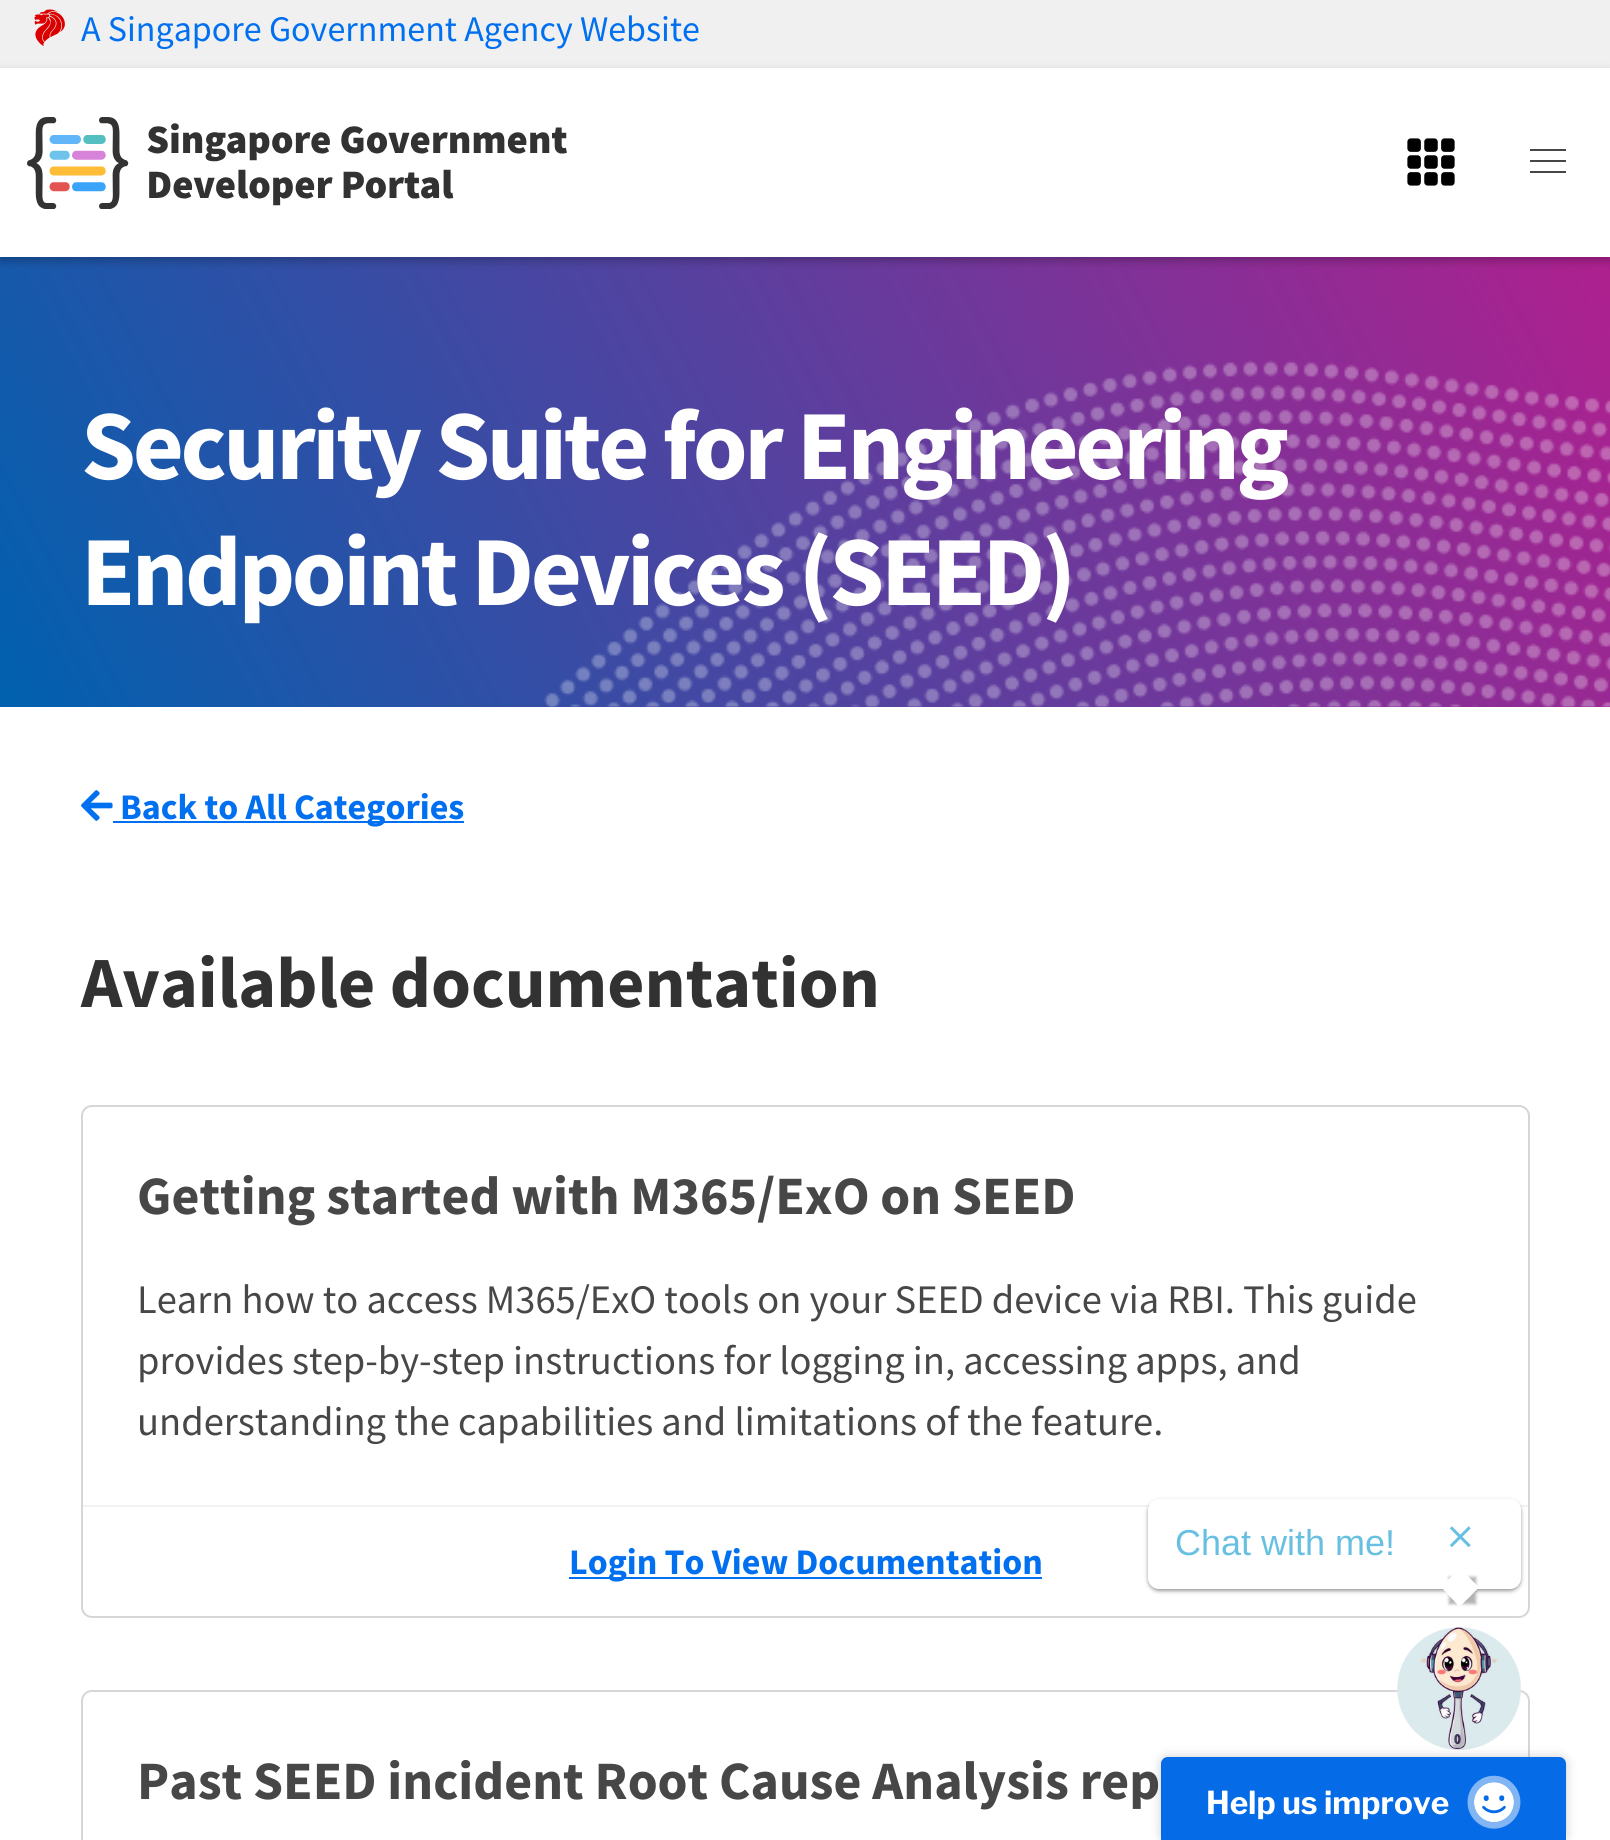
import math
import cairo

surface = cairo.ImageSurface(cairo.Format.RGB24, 1610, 1840)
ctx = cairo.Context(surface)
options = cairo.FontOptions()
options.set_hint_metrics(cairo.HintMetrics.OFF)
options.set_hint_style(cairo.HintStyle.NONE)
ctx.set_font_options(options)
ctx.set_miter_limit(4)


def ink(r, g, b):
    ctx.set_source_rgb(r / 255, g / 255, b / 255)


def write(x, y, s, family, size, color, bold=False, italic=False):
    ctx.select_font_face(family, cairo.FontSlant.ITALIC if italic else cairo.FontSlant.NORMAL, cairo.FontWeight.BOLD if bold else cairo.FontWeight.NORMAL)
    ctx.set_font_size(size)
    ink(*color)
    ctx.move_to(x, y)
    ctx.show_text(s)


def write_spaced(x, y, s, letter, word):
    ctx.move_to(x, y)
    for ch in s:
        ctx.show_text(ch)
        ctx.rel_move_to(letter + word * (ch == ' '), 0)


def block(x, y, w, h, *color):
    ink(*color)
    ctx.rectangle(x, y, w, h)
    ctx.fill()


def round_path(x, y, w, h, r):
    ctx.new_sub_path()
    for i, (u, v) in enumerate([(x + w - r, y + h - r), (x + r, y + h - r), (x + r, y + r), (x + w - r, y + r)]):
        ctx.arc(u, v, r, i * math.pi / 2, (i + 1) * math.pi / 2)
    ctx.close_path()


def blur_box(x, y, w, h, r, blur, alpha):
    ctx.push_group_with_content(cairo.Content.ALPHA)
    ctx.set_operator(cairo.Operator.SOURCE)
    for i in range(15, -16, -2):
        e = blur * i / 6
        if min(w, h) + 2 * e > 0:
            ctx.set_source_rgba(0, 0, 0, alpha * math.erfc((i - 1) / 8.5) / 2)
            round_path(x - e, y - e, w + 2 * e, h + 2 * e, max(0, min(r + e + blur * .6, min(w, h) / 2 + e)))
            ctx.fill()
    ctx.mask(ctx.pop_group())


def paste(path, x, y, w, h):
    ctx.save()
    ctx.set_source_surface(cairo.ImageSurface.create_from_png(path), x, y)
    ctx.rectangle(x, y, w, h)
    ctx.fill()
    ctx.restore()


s1 = dict(family="Source Sans Pro", size=36, color=(0, 112, 240))
s2 = dict(family="Source Sans Pro", size=36, color=(0, 112, 240), bold=True)
s3 = dict(family="Source Sans Pro", size=72, color=(50, 50, 50), bold=True)
s4 = dict(family="Source Sans Pro", size=54, color=(71, 71, 71), bold=True)
s5 = dict(family="Source Sans Pro", size=40.5, color=(71, 71, 71))
s6 = dict(family="Liberation Sans", size=36, color=(103, 191, 226))
s7 = dict(family="Libre Franklin", size=31.5, color=(255, 255, 255), bold=True)

ink(255, 255, 255)
ctx.paint()
block(0, 0, 1610, 68, 240, 240, 240)
paste("pic1.png", 34, 9, 31, 37)
write(81, 41, "A Singapore Government Agency Website", **s1)
gradient = cairo.LinearGradient(1569, 73, 86, 867)
gradient.add_color_stop_rgba(0, 0.706, 0.118, 0.557, 1)
gradient.add_color_stop_rgba(1, 0, 0.38, 0.686, 1)
ctx.set_source(gradient)
ctx.rectangle(0, 257, 1610, 450)
ctx.fill()
ink(0, 0, 0)
blur_box(0, 72, 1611, 189, 0, 4.5, 0.25)
block(0, 68, 1610, 189, 255, 255, 255)
paste("pic2.png", 27, 117, 540, 92)
paste("pic3.png", 1407, 138, 48, 48)
block(1530, 149, 36, 2, 71, 71, 71)
block(1530, 160, 36, 2, 71, 71, 71)
block(1530, 171, 36, 2, 71, 71, 71)
paste("pic4.png", 544, 360, 1066, 347)
ctx.select_font_face("Source Sans Pro", cairo.FontSlant.NORMAL, cairo.FontWeight.BOLD)
ctx.set_font_size(99)
ink(255, 255, 255)
write_spaced(81, 479, "Security Suite for Engineering", -3.4, 0)
write_spaced(81, 605, "Endpoint Devices (SEED)", -3.4, 0)
paste("pic5.png", 81, 790, 32, 31)
block(113, 821, 351, 2, 0, 112, 240)
write(120, 819, "Back to All Categories", **s2)
write(81, 1007, "Available documentation", **s3)
round_path(82, 1106, 1447, 511, 10)
ink(214, 214, 214)
ctx.stroke()
write(137, 1214, "Getting started with M365/ExO on SEED", **s4)
write(137, 1313, "Learn how to access M365/ExO tools on your SEED device via RBI. This guide", **s5)
write(137, 1374, "provides step-by-step instructions for logging in, accessing apps, and", **s5)
write(137, 1435, "understanding the capabilities and limitations of the feature.", **s5)
block(83, 1505, 1445, 2, 242, 242, 242)
block(569, 1577, 473, 2, 0, 112, 240)
write(569, 1574, "Login To View Documentation", **s2)
round_path(82, 1691, 1447, 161, 10)
ink(214, 214, 214)
ctx.stroke()
write(137, 1799, "Past SEED incident Root Cause Analysis rep", **s4)
ink(0, 0, 0)
blur_box(1148, 1501, 373, 90, 11, 2, 0.4)
ink(255, 255, 255)
round_path(1148, 1499, 373, 90, 11)
ctx.fill()
write(1175, 1555, "Chat with me!", **s6)
paste("pic6.png", 1449, 1526, 22, 22)
ctx.save()
ctx.set_fill_rule(cairo.FillRule.EVEN_ODD)
ctx.new_path()
ctx.move_to(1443, 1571)
ctx.line_to(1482, 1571)
ctx.line_to(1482, 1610)
ctx.line_to(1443, 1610)
ctx.close_path()
ctx.move_to(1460, 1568)
ctx.line_to(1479, 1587.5)
ctx.line_to(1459.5, 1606.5)
ctx.line_to(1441, 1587)
ctx.close_path()
ctx.clip()
ink(0, 0, 0)
blur_box(1449, 1577, 27, 27, 0, 1.5, 0.3)
ctx.restore()
ink(255, 255, 255)
ctx.new_path()
ctx.move_to(1479, 1587.5)
ctx.line_to(1459.5, 1606.5)
ctx.line_to(1460, 1587.5)
ctx.close_path()
ctx.fill()
ctx.new_path()
ctx.move_to(1459.5, 1606.5)
ctx.line_to(1441, 1587)
ctx.line_to(1460, 1587.5)
ctx.close_path()
ctx.fill()
paste("pic7.png", 1397, 1627, 124, 123)
ink(0, 0, 0)
blur_box(1161, 1757, 405, 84, 7, 5.5, 0.2)
ink(5, 107, 231)
ctx.new_path()
ctx.move_to(1168, 1757)
ctx.line_to(1559, 1757)
ctx.curve_to(1563, 1757, 1566, 1760, 1566, 1764)
ctx.line_to(1566, 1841)
ctx.line_to(1161, 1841)
ctx.line_to(1161, 1764)
ctx.curve_to(1161, 1760, 1164, 1757, 1168, 1757)
ctx.close_path()
ctx.fill()
write(1206, 1814, "Help us improve", **s7)
paste("pic8.png", 1467, 1775, 54, 54)
surface.write_to_png("screenshot.png")
